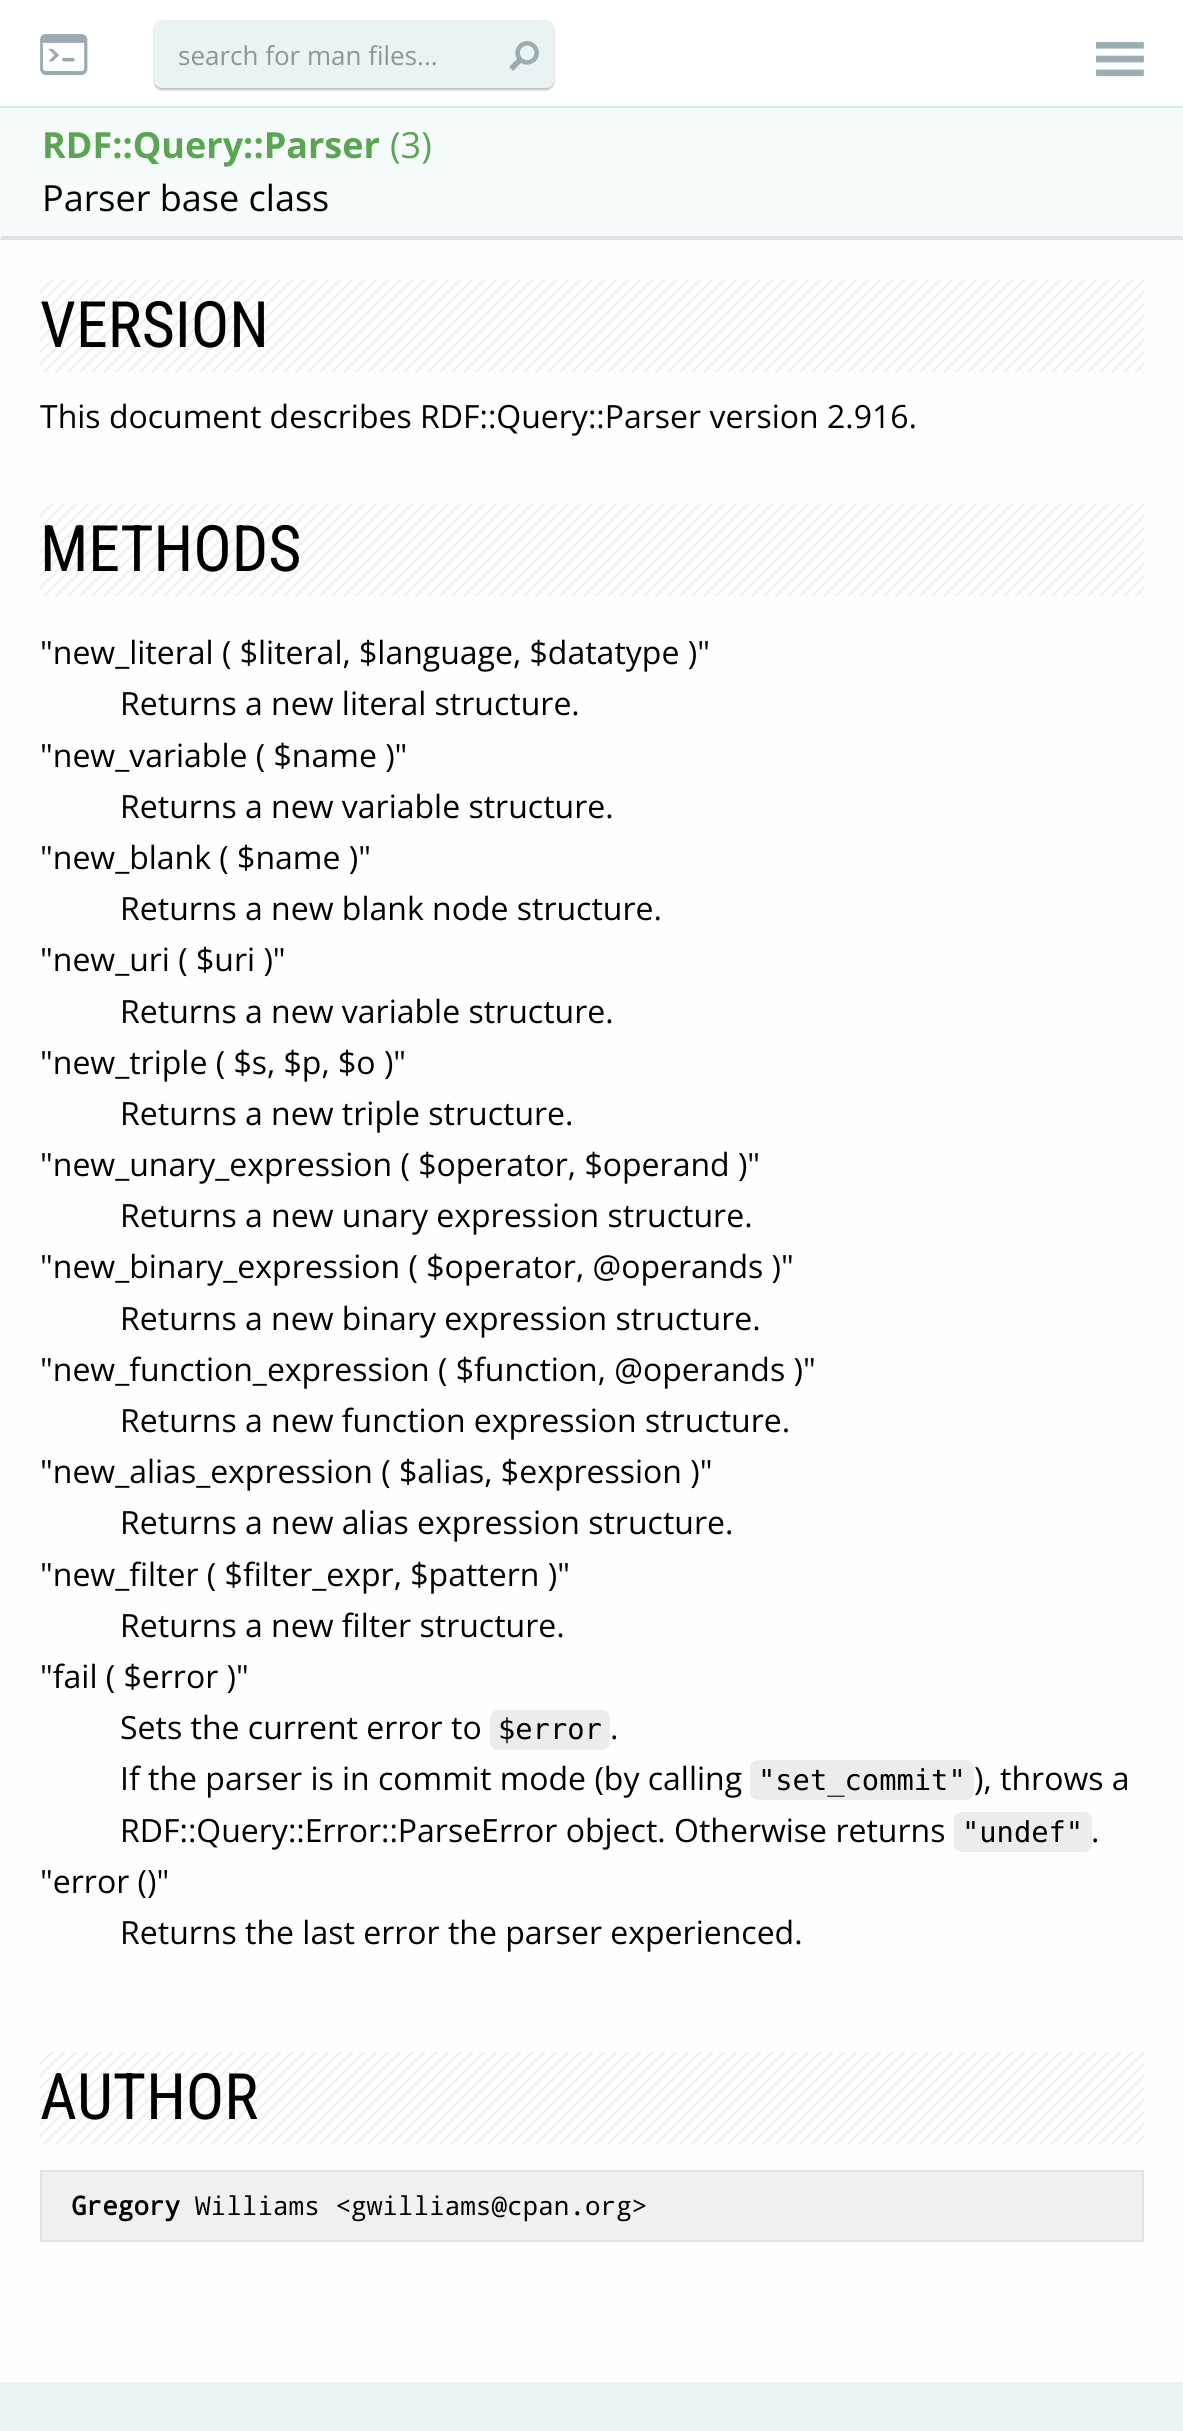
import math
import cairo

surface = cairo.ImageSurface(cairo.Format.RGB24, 1183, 2431)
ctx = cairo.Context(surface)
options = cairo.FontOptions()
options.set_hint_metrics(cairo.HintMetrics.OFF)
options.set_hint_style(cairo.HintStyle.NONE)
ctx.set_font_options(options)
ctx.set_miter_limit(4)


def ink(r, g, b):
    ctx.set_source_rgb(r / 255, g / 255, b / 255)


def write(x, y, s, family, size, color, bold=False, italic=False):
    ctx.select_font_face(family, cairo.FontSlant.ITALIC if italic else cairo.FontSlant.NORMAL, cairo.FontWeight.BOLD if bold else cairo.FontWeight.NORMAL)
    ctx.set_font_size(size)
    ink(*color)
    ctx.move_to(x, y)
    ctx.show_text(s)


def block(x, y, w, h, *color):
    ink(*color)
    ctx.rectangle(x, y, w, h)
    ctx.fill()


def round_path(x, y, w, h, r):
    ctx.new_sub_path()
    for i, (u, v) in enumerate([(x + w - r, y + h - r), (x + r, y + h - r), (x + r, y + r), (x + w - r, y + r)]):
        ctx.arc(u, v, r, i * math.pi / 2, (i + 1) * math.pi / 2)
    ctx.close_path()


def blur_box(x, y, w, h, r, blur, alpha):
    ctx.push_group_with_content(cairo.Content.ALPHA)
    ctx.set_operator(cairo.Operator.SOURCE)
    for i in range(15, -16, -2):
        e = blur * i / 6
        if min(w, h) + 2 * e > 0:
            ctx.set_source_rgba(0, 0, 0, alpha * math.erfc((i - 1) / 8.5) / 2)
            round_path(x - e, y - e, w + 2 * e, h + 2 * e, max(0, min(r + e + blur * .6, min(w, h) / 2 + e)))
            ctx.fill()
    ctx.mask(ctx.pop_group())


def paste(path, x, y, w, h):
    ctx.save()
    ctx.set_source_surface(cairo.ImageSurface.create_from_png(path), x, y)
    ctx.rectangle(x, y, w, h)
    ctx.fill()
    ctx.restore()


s1 = dict(family="Open Sans", size=26, color=(134, 150, 157))
s2 = dict(family="Open Sans", size=36, color=(89, 165, 82), bold=True)
s3 = dict(family="Open Sans", size=36, color=(89, 165, 82))
s4 = dict(family="Open Sans", size=36, color=(0, 0, 0))
s5 = dict(family="Roboto Condensed", size=64, color=(0, 0, 0))
s6 = dict(family="Open Sans", size=32, color=(0, 0, 0))
s7 = dict(family="DejaVu Sans Mono", size=28.75, color=(0, 0, 0))
s8 = dict(family="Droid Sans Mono", size=26, color=(0, 0, 0), bold=True)
s9 = dict(family="Droid Sans Mono", size=26, color=(0, 0, 0))

ink(234, 242, 244)
ctx.paint()
block(0, 0, 1183, 106, 255, 255, 255)
block(0, 106, 1183, 2, 220, 229, 231)
paste("pic1.png", 40, 34, 49, 42)
ink(6, 47, 55)
blur_box(154, 22, 400, 68, 8, 1, 0.3)
ink(234, 242, 244)
round_path(154, 20, 400, 68, 8)
ctx.fill()
write(178, 65, "search for man files...", **s1)
paste("pic2.png", 509, 41, 30, 30)
paste("pic3.png", 1096, 41, 48, 36)
block(0, 240, 1183, 2142, 254, 254, 254)
block(0, 108, 1183, 132, 246, 251, 252)
ink(223, 227, 233)
ctx.new_path()
ctx.move_to(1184, 240)
ctx.line_to(0, 240)
ctx.line_to(2, 236)
ctx.line_to(1182, 236)
ctx.close_path()
ctx.fill()
write(42, 158, "RDF::Query::Parser", **s2)
write(390, 158, "(3)", **s3)
write(42, 211, "Parser base class", **s4)
paste("pic4.png", 40, 280, 1104, 92)
write(40, 347, "VERSION", **s5)
write(40, 428, "This document describes RDF::Query::Parser version 2.916.", **s6)
paste("pic5.png", 40, 504, 1104, 92)
write(40, 571, "METHODS", **s5)
write(40, 664, "\"new_literal ( $literal, $language, $datatype )\"", **s6)
write(120, 715, "Returns a new literal structure.", **s6)
write(40, 767, "\"new_variable ( $name )\"", **s6)
write(120, 818, "Returns a new variable structure.", **s6)
write(40, 869, "\"new_blank ( $name )\"", **s6)
write(120, 920, "Returns a new blank node structure.", **s6)
write(40, 971, "\"new_uri ( $uri )\"", **s6)
write(120, 1023, "Returns a new variable structure.", **s6)
write(40, 1074, "\"new_triple ( $s, $p, $o )\"", **s6)
write(120, 1125, "Returns a new triple structure.", **s6)
write(40, 1176, "\"new_unary_expression ( $operator, $operand )\"", **s6)
write(120, 1227, "Returns a new unary expression structure.", **s6)
write(40, 1278, "\"new_binary_expression ( $operator, @operands )\"", **s6)
write(120, 1330, "Returns a new binary expression structure.", **s6)
write(40, 1381, "\"new_function_expression ( $function, @operands )\"", **s6)
write(120, 1432, "Returns a new function expression structure.", **s6)
write(40, 1483, "\"new_alias_expression ( $alias, $expression )\"", **s6)
write(120, 1534, "Returns a new alias expression structure.", **s6)
write(40, 1586, "\"new_filter ( $filter_expr, $pattern )\"", **s6)
write(120, 1637, "Returns a new filter structure.", **s6)
write(40, 1688, "\"fail ( $error )\"", **s6)
write(120, 1739, "Sets the current error to", **s6)
ink(236, 236, 236)
round_path(490, 1710, 120, 40, 8)
ctx.fill()
write(498, 1739, "$error", **s7)
write(610, 1739, ".", **s6)
write(120, 1790, "If the parser is in commit mode (by calling", **s6)
ink(236, 236, 236)
round_path(750, 1760, 224, 40, 8)
ctx.fill()
write(758, 1790, "\"set_commit\"", **s7)
write(974, 1790, "), throws a", **s6)
write(120, 1842, "RDF::Query::Error::ParseError object. Otherwise returns", **s6)
ink(236, 236, 236)
round_path(954, 1812, 138, 40, 8)
ctx.fill()
write(962, 1842, "\"undef\"", **s7)
write(1091, 1842, ".", **s6)
write(40, 1893, "\"error ()\"", **s6)
write(120, 1944, "Returns the last error the parser experienced.", **s6)
paste("pic5.png", 40, 2052, 1104, 92)
write(40, 2119, "AUTHOR", **s5)
ink(240, 240, 240)
ctx.rectangle(41, 2171, 1102, 70)
ctx.fill_preserve()
ink(225, 225, 232)
ctx.stroke()
write(71, 2215, "Gregory", **s8)
write(195, 2215, "Williams <gwilliams@cpan.org>", **s9)
surface.write_to_png("screenshot.png")
